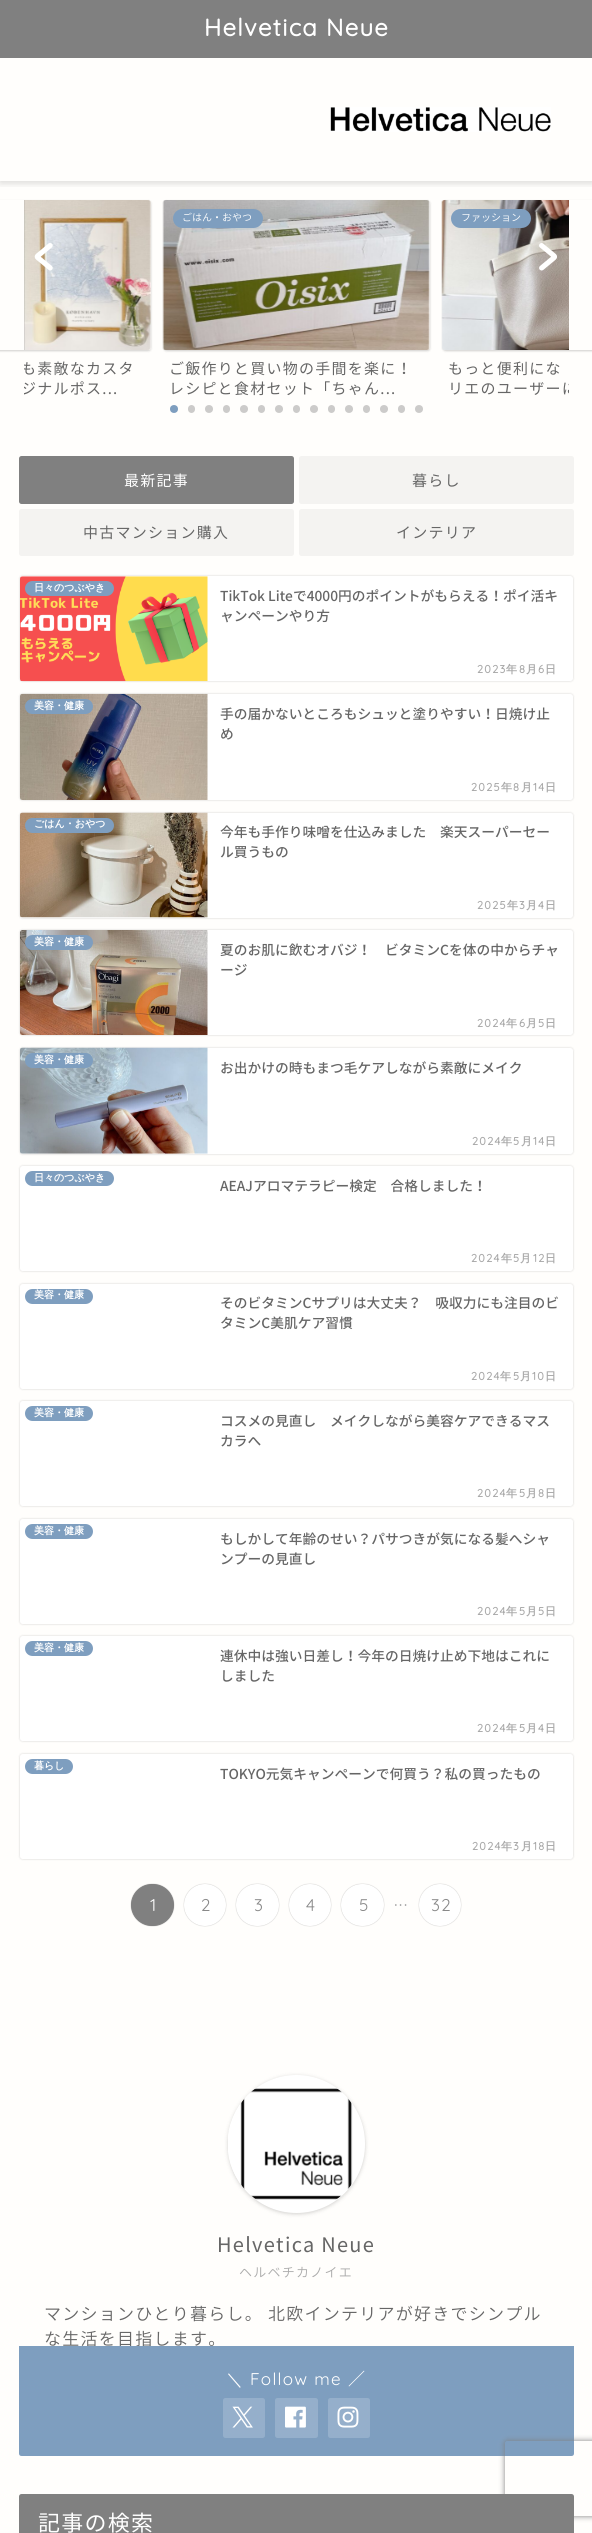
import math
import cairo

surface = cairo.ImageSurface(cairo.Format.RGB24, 592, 2533)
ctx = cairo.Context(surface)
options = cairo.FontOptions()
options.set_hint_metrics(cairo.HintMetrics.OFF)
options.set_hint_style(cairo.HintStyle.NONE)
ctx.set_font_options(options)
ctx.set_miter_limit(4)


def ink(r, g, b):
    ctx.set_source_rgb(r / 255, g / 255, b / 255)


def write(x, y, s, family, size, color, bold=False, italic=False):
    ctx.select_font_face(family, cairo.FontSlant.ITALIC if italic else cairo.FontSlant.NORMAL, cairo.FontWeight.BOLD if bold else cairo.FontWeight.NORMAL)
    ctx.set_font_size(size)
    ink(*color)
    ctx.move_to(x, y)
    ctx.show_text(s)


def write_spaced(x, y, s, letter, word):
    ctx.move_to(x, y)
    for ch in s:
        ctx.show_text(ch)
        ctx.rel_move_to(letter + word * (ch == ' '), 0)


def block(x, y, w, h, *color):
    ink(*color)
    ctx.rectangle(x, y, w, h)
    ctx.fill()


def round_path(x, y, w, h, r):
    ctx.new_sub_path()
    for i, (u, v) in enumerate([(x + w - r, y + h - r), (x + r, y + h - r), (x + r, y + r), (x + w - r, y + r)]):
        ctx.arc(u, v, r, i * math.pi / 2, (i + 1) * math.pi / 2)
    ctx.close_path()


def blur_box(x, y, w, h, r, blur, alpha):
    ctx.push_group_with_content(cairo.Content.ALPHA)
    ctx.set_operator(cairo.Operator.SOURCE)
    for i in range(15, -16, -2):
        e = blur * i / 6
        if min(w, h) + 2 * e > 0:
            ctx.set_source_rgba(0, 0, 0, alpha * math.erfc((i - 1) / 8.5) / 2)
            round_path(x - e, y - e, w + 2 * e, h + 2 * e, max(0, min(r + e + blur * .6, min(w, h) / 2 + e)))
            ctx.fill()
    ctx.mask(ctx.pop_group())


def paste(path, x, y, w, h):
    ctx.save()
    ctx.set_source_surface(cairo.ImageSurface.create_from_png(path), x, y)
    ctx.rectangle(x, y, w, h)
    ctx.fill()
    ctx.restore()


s1 = dict(family="Noto Sans JP Light", size=10, color=(255, 255, 255))
s2 = dict(family="WenQuanYi Zen Hei", size=10, color=(255, 255, 255), bold=True)
s3 = dict(family="Noto Sans JP Medium", size=13.75, color=(102, 102, 102))

ink(255, 254, 252)
ctx.paint()
ctx.save()
ctx.rectangle(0, 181, 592, 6)
ctx.clip()
ink(0, 0, 0)
blur_box(0, 59, 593, 124, 0, 4, 0.15)
ctx.restore()
block(0, 0, 592, 58, 128, 128, 128)
ctx.select_font_face("Quicksand", cairo.FontSlant.NORMAL, cairo.FontWeight.BOLD)
ctx.set_font_size(24)
ink(255, 255, 255)
write_spaced(204, 36, "Helvetica Neue", 1.25, 0)
paste("pic1.png", 330, 107, 221, 25)
ctx.save()
ctx.set_fill_rule(cairo.FillRule.EVEN_ODD)
ctx.new_path()
ctx.move_to(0, 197)
ctx.line_to(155, 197)
ctx.line_to(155, 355)
ctx.line_to(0, 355)
ctx.close_path()
ctx.move_to(-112.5, 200)
ctx.line_to(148.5, 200)
ctx.curve_to(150, 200, 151, 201, 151, 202.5)
ctx.line_to(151, 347.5)
ctx.curve_to(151, 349, 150, 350, 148.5, 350)
ctx.line_to(-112.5, 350)
ctx.curve_to(-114, 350, -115, 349, -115, 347.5)
ctx.line_to(-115, 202.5)
ctx.curve_to(-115, 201, -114, 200, -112.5, 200)
ctx.close_path()
ctx.clip()
ink(0, 0, 0)
blur_box(-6, 201, 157, 150, 2.5, 1, 0.18)
ctx.restore()
ctx.new_path()
ctx.move_to(24, 200)
ctx.line_to(148.5, 200)
ctx.curve_to(150, 200, 151, 201, 151, 202.5)
ctx.line_to(151, 347.5)
ctx.curve_to(151, 349, 150, 350, 148.5, 350)
ctx.line_to(24, 350)
ctx.close_path()
ctx.fill()
paste("pic2.png", 24, 200, 127, 150)
ctx.save()
ctx.rectangle(24, 200, 545, 219)
ctx.clip()
ctx.select_font_face("Noto Sans JP")
ctx.set_font_size(15)
ink(102, 102, 102)
write_spaced(21, 374, "も素敵なカスタ", 1.25, 0)
write_spaced(21, 394, "ジナルポス...", 1.25, 0)
ctx.restore()
ink(0, 0, 0)
blur_box(164, 201, 266, 150, 2.5, 1, 0.18)
ink(255, 255, 255)
round_path(164, 200, 266, 150, 2.5)
ctx.fill()
paste("pic3.png", 162, 200, 268, 150)
ink(126, 158, 191)
round_path(173, 209, 90, 19, 9.5)
ctx.fill()
write(182, 221, "ごはん・おやつ", **s1)
ctx.select_font_face("Noto Sans JP")
ctx.set_font_size(15)
ink(102, 102, 102)
write_spaced(169, 374, "ご飯作りと買い物の手間を楽に！", 1.25, 0)
write_spaced(169, 394, "レシピと食材セット「ちゃん...", 1.25, 0)
ctx.save()
ctx.set_fill_rule(cairo.FillRule.EVEN_ODD)
ctx.new_path()
ctx.move_to(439, 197)
ctx.line_to(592, 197)
ctx.line_to(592, 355)
ctx.line_to(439, 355)
ctx.close_path()
ctx.move_to(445.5, 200)
ctx.line_to(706.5, 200)
ctx.curve_to(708, 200, 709, 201, 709, 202.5)
ctx.line_to(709, 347.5)
ctx.curve_to(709, 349, 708, 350, 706.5, 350)
ctx.line_to(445.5, 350)
ctx.curve_to(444, 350, 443, 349, 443, 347.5)
ctx.line_to(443, 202.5)
ctx.curve_to(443, 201, 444, 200, 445.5, 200)
ctx.close_path()
ctx.clip()
ink(0, 0, 0)
blur_box(443, 201, 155, 150, 2.5, 1, 0.18)
ctx.restore()
paste("pic4.png", 441, 200, 128, 150)
ink(126, 158, 191)
round_path(451, 209, 80, 19, 9.5)
ctx.fill()
write(461, 221, "ファッション", **s1)
ctx.select_font_face("Noto Sans JP")
ctx.set_font_size(15)
ink(102, 102, 102)
write_spaced(448, 374, "もっと便利にな", 1.25, 0)
ctx.save()
ctx.rectangle(24, 200, 545, 219)
ctx.clip()
write_spaced(448, 394, "リエのユーザーに", 1.25, 0)
ctx.restore()
paste("pic5.png", 34, 243, 19, 28)
paste("pic6.png", 539, 243, 18, 28)
ink(126, 158, 191)
ctx.arc(174, 409, 4, 0, 2 * math.pi)
ctx.fill()
ink(204, 203, 202)
round_path(188, 405, 7, 8, 3.5)
ctx.fill()
ctx.arc(209, 409, 4, 0, 2 * math.pi)
ctx.fill()
round_path(223, 405, 7, 8, 3.5)
ctx.fill()
ctx.arc(244, 409, 4, 0, 2 * math.pi)
ctx.fill()
round_path(258, 405, 7, 8, 3.5)
ctx.fill()
ctx.arc(279, 409, 4, 0, 2 * math.pi)
ctx.fill()
round_path(293, 405, 7, 8, 3.5)
ctx.fill()
ctx.arc(314, 409, 4, 0, 2 * math.pi)
ctx.fill()
round_path(328, 405, 7, 8, 3.5)
ctx.fill()
ctx.arc(349, 409, 4, 0, 2 * math.pi)
ctx.fill()
round_path(363, 405, 7, 8, 3.5)
ctx.fill()
ctx.arc(384, 409, 4, 0, 2 * math.pi)
ctx.fill()
round_path(398, 405, 7, 8, 3.5)
ctx.fill()
ctx.arc(419, 409, 4, 0, 2 * math.pi)
ctx.fill()
ink(128, 128, 128)
round_path(19, 456, 275, 48, 2.5)
ctx.fill()
ink(255, 255, 255)
write_spaced(124, 486, "最新記事", 1.25, 0)
ink(244, 243, 241)
round_path(299, 456, 275, 48, 2.5)
ctx.fill()
ink(102, 102, 102)
write_spaced(412, 486, "暮らし", 1.25, 0)
ink(244, 243, 241)
round_path(19, 509, 275, 47, 2.5)
ctx.fill()
ink(102, 102, 102)
write_spaced(83, 538, "中古マンション購入", 1.25, 0)
ink(244, 243, 241)
round_path(299, 509, 275, 47, 2.5)
ctx.fill()
ink(102, 102, 102)
write_spaced(396, 538, "インテリア", 1.25, 0)
ink(0, 0, 0)
blur_box(20, 576, 553, 105, 2.5, 1, 0.18)
ink(255, 255, 255)
round_path(20, 576, 553, 105, 2.5)
ctx.fill()
paste("pic7.png", 20, 576, 188, 106)
ink(126, 158, 191)
round_path(25, 581, 89, 15, 7.5)
ctx.fill()
write(34, 591, "日々のつぶやき", **s2)
write(220, 601, "TikTok Liteで4000円のポイントがもらえる！ポイ活キ", **s3)
write(220, 621, "ャンペーンやり方", **s3)
ctx.select_font_face("Quicksand", cairo.FontSlant.NORMAL, cairo.FontWeight.BOLD)
ctx.set_font_size(11)
ink(170, 170, 170)
write_spaced(477, 673, "2023", 1.25, 0)
ctx.select_font_face("WenQuanYi Zen Hei", cairo.FontSlant.NORMAL, cairo.FontWeight.BOLD)
write_spaced(506, 673, "年", 1.25, 0)
ctx.select_font_face("Quicksand", cairo.FontSlant.NORMAL, cairo.FontWeight.BOLD)
write_spaced(519, 673, "8", 1.25, 0)
ctx.select_font_face("WenQuanYi Zen Hei", cairo.FontSlant.NORMAL, cairo.FontWeight.BOLD)
write_spaced(526, 673, "月", 1.25, 0)
ctx.select_font_face("Quicksand", cairo.FontSlant.NORMAL, cairo.FontWeight.BOLD)
write_spaced(538, 673, "6", 1.25, 0)
ctx.select_font_face("WenQuanYi Zen Hei", cairo.FontSlant.NORMAL, cairo.FontWeight.BOLD)
write_spaced(545, 673, "日", 1.25, 0)
ink(0, 0, 0)
blur_box(20, 694, 553, 106, 2.5, 1, 0.18)
ink(255, 255, 255)
round_path(20, 694, 553, 106, 2.5)
ctx.fill()
paste("pic8.png", 20, 693, 188, 107)
ink(126, 158, 191)
round_path(25, 699, 68, 15, 7.5)
ctx.fill()
write(34, 709, "美容・健康", **s2)
write(220, 719, "手の届かないところもシュッと塗りやすい！日焼け止", **s3)
write(220, 739, "め", **s3)
ctx.select_font_face("Quicksand", cairo.FontSlant.NORMAL, cairo.FontWeight.BOLD)
ctx.set_font_size(11)
ink(170, 170, 170)
write_spaced(471, 791, "2025", 1.25, 0)
ctx.select_font_face("WenQuanYi Zen Hei", cairo.FontSlant.NORMAL, cairo.FontWeight.BOLD)
write_spaced(501, 791, "年", 1.25, 0)
ctx.select_font_face("Quicksand", cairo.FontSlant.NORMAL, cairo.FontWeight.BOLD)
write_spaced(513, 791, "8", 1.25, 0)
ctx.select_font_face("WenQuanYi Zen Hei", cairo.FontSlant.NORMAL, cairo.FontWeight.BOLD)
write_spaced(521, 791, "月", 1.25, 0)
ctx.select_font_face("Quicksand", cairo.FontSlant.NORMAL, cairo.FontWeight.BOLD)
write_spaced(533, 791, "14", 1.25, 0)
ctx.select_font_face("WenQuanYi Zen Hei", cairo.FontSlant.NORMAL, cairo.FontWeight.BOLD)
write_spaced(545, 791, "日", 1.25, 0)
ink(0, 0, 0)
blur_box(20, 813, 553, 105, 2.5, 1, 0.18)
ink(255, 255, 255)
round_path(20, 813, 553, 105, 2.5)
ctx.fill()
paste("pic9.png", 20, 812, 188, 106)
ink(126, 158, 191)
round_path(25, 818, 89, 15, 7.5)
ctx.fill()
write(34, 827, "ごはん・おやつ", **s2)
write(220, 837, "今年も手作り味噌を仕込みました　楽天スーパーセー", **s3)
write(220, 857, "ル買うもの", **s3)
ctx.select_font_face("Quicksand", cairo.FontSlant.NORMAL, cairo.FontWeight.BOLD)
ctx.set_font_size(11)
ink(170, 170, 170)
write_spaced(477, 909, "2025", 1.25, 0)
ctx.select_font_face("WenQuanYi Zen Hei", cairo.FontSlant.NORMAL, cairo.FontWeight.BOLD)
write_spaced(507, 909, "年", 1.25, 0)
ctx.select_font_face("Quicksand", cairo.FontSlant.NORMAL, cairo.FontWeight.BOLD)
write_spaced(519, 909, "3", 1.25, 0)
ctx.select_font_face("WenQuanYi Zen Hei", cairo.FontSlant.NORMAL, cairo.FontWeight.BOLD)
write_spaced(526, 909, "月", 1.25, 0)
ctx.select_font_face("Quicksand", cairo.FontSlant.NORMAL, cairo.FontWeight.BOLD)
write_spaced(538, 909, "4", 1.25, 0)
ctx.select_font_face("WenQuanYi Zen Hei", cairo.FontSlant.NORMAL, cairo.FontWeight.BOLD)
write_spaced(545, 909, "日", 1.25, 0)
ink(0, 0, 0)
blur_box(20, 930, 553, 105, 2.5, 1, 0.18)
ink(255, 255, 255)
round_path(20, 930, 553, 105, 2.5)
ctx.fill()
paste("pic10.png", 20, 930, 188, 105)
ink(126, 158, 191)
round_path(25, 935, 68, 15, 7.5)
ctx.fill()
write(34, 945, "美容・健康", **s2)
write(220, 955, "夏のお肌に飲むオバジ！　ビタミンCを体の中からチャ", **s3)
write(220, 975, "ージ", **s3)
ctx.select_font_face("Quicksand", cairo.FontSlant.NORMAL, cairo.FontWeight.BOLD)
ctx.set_font_size(11)
ink(170, 170, 170)
write_spaced(477, 1027, "2024", 1.25, 0)
ctx.select_font_face("WenQuanYi Zen Hei", cairo.FontSlant.NORMAL, cairo.FontWeight.BOLD)
write_spaced(506, 1027, "年", 1.25, 0)
ctx.select_font_face("Quicksand", cairo.FontSlant.NORMAL, cairo.FontWeight.BOLD)
write_spaced(519, 1027, "6", 1.25, 0)
ctx.select_font_face("WenQuanYi Zen Hei", cairo.FontSlant.NORMAL, cairo.FontWeight.BOLD)
write_spaced(526, 1027, "月", 1.25, 0)
ctx.select_font_face("Quicksand", cairo.FontSlant.NORMAL, cairo.FontWeight.BOLD)
write_spaced(538, 1027, "5", 1.25, 0)
ctx.select_font_face("WenQuanYi Zen Hei", cairo.FontSlant.NORMAL, cairo.FontWeight.BOLD)
write_spaced(545, 1027, "日", 1.25, 0)
ink(0, 0, 0)
blur_box(20, 1048, 553, 106, 2.5, 1, 0.18)
ink(255, 255, 255)
round_path(20, 1048, 553, 106, 2.5)
ctx.fill()
paste("pic11.png", 20, 1047, 188, 107)
ink(126, 158, 191)
round_path(25, 1053, 68, 15, 7.5)
ctx.fill()
write(34, 1063, "美容・健康", **s2)
write(220, 1073, "お出かけの時もまつ毛ケアしながら素敵にメイク", **s3)
ctx.select_font_face("Quicksand", cairo.FontSlant.NORMAL, cairo.FontWeight.BOLD)
ctx.set_font_size(11)
ink(170, 170, 170)
write_spaced(472, 1145, "2024", 1.25, 0)
ctx.select_font_face("WenQuanYi Zen Hei", cairo.FontSlant.NORMAL, cairo.FontWeight.BOLD)
write_spaced(501, 1145, "年", 1.25, 0)
ctx.select_font_face("Quicksand", cairo.FontSlant.NORMAL, cairo.FontWeight.BOLD)
write_spaced(513, 1145, "5", 1.25, 0)
ctx.select_font_face("WenQuanYi Zen Hei", cairo.FontSlant.NORMAL, cairo.FontWeight.BOLD)
write_spaced(521, 1145, "月", 1.25, 0)
ctx.select_font_face("Quicksand", cairo.FontSlant.NORMAL, cairo.FontWeight.BOLD)
write_spaced(533, 1145, "14", 1.25, 0)
ctx.select_font_face("WenQuanYi Zen Hei", cairo.FontSlant.NORMAL, cairo.FontWeight.BOLD)
write_spaced(545, 1145, "日", 1.25, 0)
ink(0, 0, 0)
blur_box(20, 1166, 553, 105, 2.5, 1, 0.18)
ink(255, 255, 255)
round_path(20, 1166, 553, 105, 2.5)
ctx.fill()
ink(126, 158, 191)
round_path(25, 1171, 89, 15, 7.5)
ctx.fill()
write(34, 1181, "日々のつぶやき", **s2)
write(220, 1191, "AEAJアロマテラピー検定　合格しました！", **s3)
ctx.select_font_face("Quicksand", cairo.FontSlant.NORMAL, cairo.FontWeight.BOLD)
ctx.set_font_size(11)
ink(170, 170, 170)
write_spaced(471, 1262, "2024", 1.25, 0)
ctx.select_font_face("WenQuanYi Zen Hei", cairo.FontSlant.NORMAL, cairo.FontWeight.BOLD)
write_spaced(501, 1262, "年", 1.25, 0)
ctx.select_font_face("Quicksand", cairo.FontSlant.NORMAL, cairo.FontWeight.BOLD)
write_spaced(513, 1262, "5", 1.25, 0)
ctx.select_font_face("WenQuanYi Zen Hei", cairo.FontSlant.NORMAL, cairo.FontWeight.BOLD)
write_spaced(520, 1262, "月", 1.25, 0)
ctx.select_font_face("Quicksand", cairo.FontSlant.NORMAL, cairo.FontWeight.BOLD)
write_spaced(533, 1262, "12", 1.25, 0)
ctx.select_font_face("WenQuanYi Zen Hei", cairo.FontSlant.NORMAL, cairo.FontWeight.BOLD)
write_spaced(545, 1262, "日", 1.25, 0)
ink(0, 0, 0)
blur_box(20, 1284, 553, 105, 2.5, 1, 0.18)
ink(255, 255, 255)
round_path(20, 1284, 553, 105, 2.5)
ctx.fill()
ink(126, 158, 191)
round_path(25, 1289, 68, 15, 7.5)
ctx.fill()
write(34, 1298, "美容・健康", **s2)
write(220, 1308, "そのビタミンCサプリは大丈夫？　吸収力にも注目のビ", **s3)
write(220, 1328, "タミンC美肌ケア習慣", **s3)
ctx.select_font_face("Quicksand", cairo.FontSlant.NORMAL, cairo.FontWeight.BOLD)
ctx.set_font_size(11)
ink(170, 170, 170)
write_spaced(471, 1380, "2024", 1.25, 0)
ctx.select_font_face("WenQuanYi Zen Hei", cairo.FontSlant.NORMAL, cairo.FontWeight.BOLD)
write_spaced(500, 1380, "年", 1.25, 0)
ctx.select_font_face("Quicksand", cairo.FontSlant.NORMAL, cairo.FontWeight.BOLD)
write_spaced(513, 1380, "5", 1.25, 0)
ctx.select_font_face("WenQuanYi Zen Hei", cairo.FontSlant.NORMAL, cairo.FontWeight.BOLD)
write_spaced(520, 1380, "月", 1.25, 0)
ctx.select_font_face("Quicksand", cairo.FontSlant.NORMAL, cairo.FontWeight.BOLD)
write_spaced(532, 1380, "10", 1.25, 0)
ctx.select_font_face("WenQuanYi Zen Hei", cairo.FontSlant.NORMAL, cairo.FontWeight.BOLD)
write_spaced(545, 1380, "日", 1.25, 0)
ink(0, 0, 0)
blur_box(20, 1401, 553, 105, 2.5, 1, 0.18)
ink(255, 255, 255)
round_path(20, 1401, 553, 105, 2.5)
ctx.fill()
ink(126, 158, 191)
round_path(25, 1406, 68, 15, 7.5)
ctx.fill()
write(34, 1416, "美容・健康", **s2)
write(220, 1426, "コスメの見直し　メイクしながら美容ケアできるマス", **s3)
write(220, 1446, "カラへ", **s3)
ctx.select_font_face("Quicksand", cairo.FontSlant.NORMAL, cairo.FontWeight.BOLD)
ctx.set_font_size(11)
ink(170, 170, 170)
write_spaced(477, 1497, "2024", 1.25, 0)
ctx.select_font_face("WenQuanYi Zen Hei", cairo.FontSlant.NORMAL, cairo.FontWeight.BOLD)
write_spaced(506, 1497, "年", 1.25, 0)
ctx.select_font_face("Quicksand", cairo.FontSlant.NORMAL, cairo.FontWeight.BOLD)
write_spaced(519, 1497, "5", 1.25, 0)
ctx.select_font_face("WenQuanYi Zen Hei", cairo.FontSlant.NORMAL, cairo.FontWeight.BOLD)
write_spaced(526, 1497, "月", 1.25, 0)
ctx.select_font_face("Quicksand", cairo.FontSlant.NORMAL, cairo.FontWeight.BOLD)
write_spaced(538, 1497, "8", 1.25, 0)
ctx.select_font_face("WenQuanYi Zen Hei", cairo.FontSlant.NORMAL, cairo.FontWeight.BOLD)
write_spaced(545, 1497, "日", 1.25, 0)
ink(0, 0, 0)
blur_box(20, 1519, 553, 105, 2.5, 1, 0.18)
ink(255, 255, 255)
round_path(20, 1519, 553, 105, 2.5)
ctx.fill()
ink(126, 158, 191)
round_path(25, 1524, 68, 15, 7.5)
ctx.fill()
write(34, 1534, "美容・健康", **s2)
write(220, 1544, "もしかして年齢のせい？パサつきが気になる髪へシャ", **s3)
write(220, 1564, "ンプーの見直し", **s3)
ctx.select_font_face("Quicksand", cairo.FontSlant.NORMAL, cairo.FontWeight.BOLD)
ctx.set_font_size(11)
ink(170, 170, 170)
write_spaced(477, 1615, "2024", 1.25, 0)
ctx.select_font_face("WenQuanYi Zen Hei", cairo.FontSlant.NORMAL, cairo.FontWeight.BOLD)
write_spaced(506, 1615, "年", 1.25, 0)
ctx.select_font_face("Quicksand", cairo.FontSlant.NORMAL, cairo.FontWeight.BOLD)
write_spaced(519, 1615, "5", 1.25, 0)
ctx.select_font_face("WenQuanYi Zen Hei", cairo.FontSlant.NORMAL, cairo.FontWeight.BOLD)
write_spaced(526, 1615, "月", 1.25, 0)
ctx.select_font_face("Quicksand", cairo.FontSlant.NORMAL, cairo.FontWeight.BOLD)
write_spaced(538, 1615, "5", 1.25, 0)
ctx.select_font_face("WenQuanYi Zen Hei", cairo.FontSlant.NORMAL, cairo.FontWeight.BOLD)
write_spaced(545, 1615, "日", 1.25, 0)
ink(0, 0, 0)
blur_box(20, 1636, 553, 105, 2.5, 1, 0.18)
ink(255, 255, 255)
round_path(20, 1636, 553, 105, 2.5)
ctx.fill()
ink(126, 158, 191)
round_path(25, 1641, 68, 15, 7.5)
ctx.fill()
write(34, 1651, "美容・健康", **s2)
write(220, 1661, "連休中は強い日差し！今年の日焼け止め下地はこれに", **s3)
write(220, 1681, "しました", **s3)
ctx.select_font_face("Quicksand", cairo.FontSlant.NORMAL, cairo.FontWeight.BOLD)
ctx.set_font_size(11)
ink(170, 170, 170)
write_spaced(477, 1732, "2024", 1.25, 0)
ctx.select_font_face("WenQuanYi Zen Hei", cairo.FontSlant.NORMAL, cairo.FontWeight.BOLD)
write_spaced(506, 1732, "年", 1.25, 0)
ctx.select_font_face("Quicksand", cairo.FontSlant.NORMAL, cairo.FontWeight.BOLD)
write_spaced(519, 1732, "5", 1.25, 0)
ctx.select_font_face("WenQuanYi Zen Hei", cairo.FontSlant.NORMAL, cairo.FontWeight.BOLD)
write_spaced(526, 1732, "月", 1.25, 0)
ctx.select_font_face("Quicksand", cairo.FontSlant.NORMAL, cairo.FontWeight.BOLD)
write_spaced(538, 1732, "4", 1.25, 0)
ctx.select_font_face("WenQuanYi Zen Hei", cairo.FontSlant.NORMAL, cairo.FontWeight.BOLD)
write_spaced(545, 1732, "日", 1.25, 0)
ink(0, 0, 0)
blur_box(20, 1754, 553, 105, 2.5, 1, 0.18)
ink(255, 255, 255)
round_path(20, 1754, 553, 105, 2.5)
ctx.fill()
ink(126, 158, 191)
round_path(25, 1759, 48, 15, 7.5)
ctx.fill()
write(34, 1769, "暮らし", **s2)
write(220, 1779, "TOKYO元気キャンペーンで何買う？私の買ったもの", **s3)
ctx.select_font_face("Quicksand", cairo.FontSlant.NORMAL, cairo.FontWeight.BOLD)
ctx.set_font_size(11)
ink(170, 170, 170)
write_spaced(472, 1850, "2024", 1.25, 0)
ctx.select_font_face("WenQuanYi Zen Hei", cairo.FontSlant.NORMAL, cairo.FontWeight.BOLD)
write_spaced(501, 1850, "年", 1.25, 0)
ctx.select_font_face("Quicksand", cairo.FontSlant.NORMAL, cairo.FontWeight.BOLD)
write_spaced(513, 1850, "3", 1.25, 0)
ctx.select_font_face("WenQuanYi Zen Hei", cairo.FontSlant.NORMAL, cairo.FontWeight.BOLD)
write_spaced(521, 1850, "月", 1.25, 0)
ctx.select_font_face("Quicksand", cairo.FontSlant.NORMAL, cairo.FontWeight.BOLD)
write_spaced(533, 1850, "18", 1.25, 0)
ctx.select_font_face("WenQuanYi Zen Hei", cairo.FontSlant.NORMAL, cairo.FontWeight.BOLD)
write_spaced(545, 1850, "日", 1.25, 0)
ink(0, 0, 0)
blur_box(131, 1884, 43, 42, 21, 0.5, 0.25)
ink(128, 128, 128)
round_path(131.5, 1884.5, 42, 41, 20.5)
ctx.fill_preserve()
ctx.set_line_width(1)
ctx.stroke()
ctx.select_font_face("Quicksand Light")
ctx.set_font_size(17)
ink(255, 255, 255)
write_spaced(150, 1911, "1", 1.25, 0)
ink(0, 0, 0)
blur_box(184, 1884, 42, 42, 21, 0.5, 0.25)
ink(255, 255, 255)
ctx.arc(205, 1905, 21, 0, 2 * math.pi)
ctx.fill()
ink(136, 136, 136)
write_spaced(201, 1911, "2", 1.25, 0)
ink(0, 0, 0)
blur_box(236, 1884, 43, 42, 21, 0.5, 0.25)
ink(255, 255, 255)
round_path(236, 1884, 43, 42, 21)
ctx.fill()
ink(136, 136, 136)
write_spaced(254, 1911, "3", 1.25, 0)
ink(0, 0, 0)
blur_box(289, 1884, 42, 42, 21, 0.5, 0.25)
ink(255, 255, 255)
ctx.arc(310, 1905, 21, 0, 2 * math.pi)
ctx.fill()
ink(136, 136, 136)
write_spaced(306, 1911, "4", 1.25, 0)
ink(0, 0, 0)
blur_box(341, 1884, 43, 42, 21, 0.5, 0.25)
ink(255, 255, 255)
round_path(341, 1884, 43, 42, 21)
ctx.fill()
ink(136, 136, 136)
write_spaced(359, 1911, "5", 1.25, 0)
ctx.set_font_size(20)
ink(170, 170, 170)
write_spaced(394, 1906, "...", 1.25, 0)
ink(0, 0, 0)
blur_box(419, 1884, 42, 42, 21, 0.5, 0.25)
ink(255, 255, 255)
ctx.arc(440, 1905, 21, 0, 2 * math.pi)
ctx.fill()
ctx.set_font_size(17)
ink(136, 136, 136)
write_spaced(431, 1911, "32", 1.25, 0)
ink(0, 0, 0)
blur_box(228, 2076, 137, 138, 68.5, 2, 0.18)
ink(255, 255, 255)
round_path(228, 2075, 137, 138, 68.5)
ctx.fill()
paste("pic12.png", 228, 2088, 125, 112)
ctx.select_font_face("Noto Sans JP")
ctx.set_font_size(20)
ink(102, 102, 102)
write_spaced(217, 2252, "Helvetica Neue", 1.25, 0)
ctx.select_font_face("Noto Sans JP Light")
ctx.set_font_size(13)
ink(170, 170, 170)
write_spaced(239, 2277, "ヘルベチカノイエ", 1.25, 0)
ctx.set_font_size(17)
ink(102, 102, 102)
write_spaced(44, 2320, "マンションひとり暮らし。 北欧インテリアが好きでシンプル", 1.25, 0)
write_spaced(44, 2345, "な生活を目指します。", 1.25, 0)
ink(126, 158, 191)
ctx.new_path()
ctx.move_to(19, 2346)
ctx.line_to(574, 2346)
ctx.line_to(574, 2453.5)
ctx.curve_to(574, 2455, 573, 2456, 571.5, 2456)
ctx.line_to(21.5, 2456)
ctx.curve_to(20, 2456, 19, 2455, 19, 2453.5)
ctx.close_path()
ctx.fill()
ctx.select_font_face("WenQuanYi Zen Hei Medium")
ink(255, 255, 255)
write_spaced(226, 2385, "＼", 1.25, 0)
ctx.select_font_face("Quicksand Light")
write_spaced(250, 2385, "Follow me", 1.25, 0)
ctx.select_font_face("Noto Sans JP")
write_spaced(348, 2385, "／", 1.25, 0)
ink(149, 175, 203)
round_path(223, 2398, 42, 40, 2.5)
ctx.fill()
paste("pic13.png", 232, 2406, 21, 22)
round_path(275, 2398, 43, 40, 2.5)
ctx.fill()
paste("pic14.png", 285, 2406, 21, 22)
round_path(328, 2398, 42, 40, 2.5)
ctx.fill()
paste("pic15.png", 337, 2406, 22, 22)
ink(128, 128, 128)
round_path(19, 2494, 555, 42, 2.5)
ctx.fill()
ctx.set_font_size(22)
ink(255, 255, 255)
write_spaced(38, 2531, "記事の検索", 1.25, 0)
ctx.save()
ctx.set_fill_rule(cairo.FillRule.EVEN_ODD)
ctx.new_path()
ctx.move_to(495, 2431)
ctx.line_to(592, 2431)
ctx.line_to(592, 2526)
ctx.line_to(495, 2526)
ctx.close_path()
ctx.move_to(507.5, 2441)
ctx.line_to(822.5, 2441)
ctx.curve_to(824, 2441, 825, 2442, 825, 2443.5)
ctx.line_to(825, 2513.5)
ctx.curve_to(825, 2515, 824, 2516, 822.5, 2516)
ctx.line_to(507.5, 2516)
ctx.curve_to(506, 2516, 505, 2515, 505, 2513.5)
ctx.line_to(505, 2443.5)
ctx.curve_to(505, 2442, 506, 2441, 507.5, 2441)
ctx.close_path()
ctx.clip()
ink(128, 128, 128)
blur_box(505, 2441, 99, 75, 2.5, 3, 1)
ctx.restore()
surface.write_to_png("screenshot.png")
